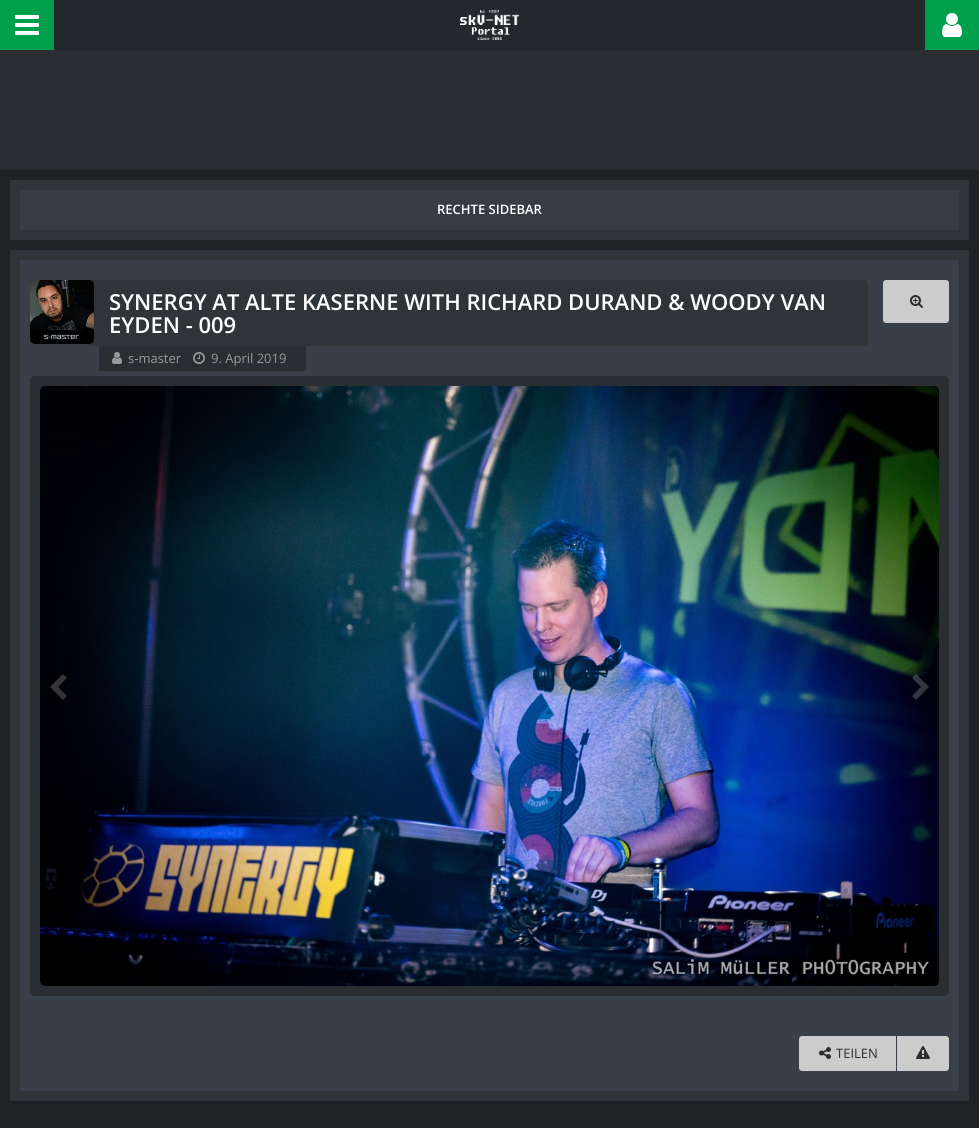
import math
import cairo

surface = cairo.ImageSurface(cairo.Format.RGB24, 979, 1128)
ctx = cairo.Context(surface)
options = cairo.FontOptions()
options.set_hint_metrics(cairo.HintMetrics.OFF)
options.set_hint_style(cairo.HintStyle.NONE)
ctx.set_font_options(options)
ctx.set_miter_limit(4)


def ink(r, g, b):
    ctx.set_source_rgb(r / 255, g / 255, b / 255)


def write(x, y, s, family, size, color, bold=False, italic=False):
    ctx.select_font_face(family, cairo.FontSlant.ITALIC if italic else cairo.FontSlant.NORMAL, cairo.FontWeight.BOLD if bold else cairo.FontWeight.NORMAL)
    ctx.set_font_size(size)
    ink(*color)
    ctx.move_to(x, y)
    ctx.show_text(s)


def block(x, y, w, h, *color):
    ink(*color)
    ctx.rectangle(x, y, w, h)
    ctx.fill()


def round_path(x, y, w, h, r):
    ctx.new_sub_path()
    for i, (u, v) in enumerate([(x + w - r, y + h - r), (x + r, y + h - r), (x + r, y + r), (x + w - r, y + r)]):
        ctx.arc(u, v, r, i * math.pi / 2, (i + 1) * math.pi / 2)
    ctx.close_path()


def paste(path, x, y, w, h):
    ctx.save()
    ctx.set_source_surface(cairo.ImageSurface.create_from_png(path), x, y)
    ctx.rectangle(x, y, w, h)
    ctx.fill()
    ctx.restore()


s1 = dict(family="Open Sans SemiBold", size=13, color=(255, 255, 255))
s2 = dict(family="Open Sans SemiBold", size=22, color=(255, 255, 255))
s3 = dict(family="Open Sans", size=13, color=(153, 153, 153))
s4 = dict(family="Open Sans", size=13, color=(45, 45, 45))

ink(31, 34, 37)
ctx.paint()
block(0, 50, 979, 120, 42, 46, 50)
block(54, 0, 871, 50, 35, 40, 45)
paste("pic1.png", 460, 10, 59, 30)
block(925, 0, 54, 50, 0, 159, 75)
paste("pic2.png", 942, 13, 20, 24)
block(0, 0, 54, 50, 0, 159, 75)
paste("pic3.png", 15, 15, 24, 20)
ink(56, 63, 72)
ctx.rectangle(15, 185, 949, 50)
ctx.fill_preserve()
ink(47, 52, 57)
ctx.set_line_width(10)
ctx.stroke()
ink(54, 60, 66)
round_path(20, 190, 939, 40, 5)
ctx.fill()
write(437, 214, "RECHTE SIDEBAR", **s1)
ink(56, 63, 72)
ctx.rectangle(15, 255, 949, 841)
ctx.fill_preserve()
ink(47, 52, 57)
ctx.stroke()
ctx.new_path()
ctx.move_to(89, 280)
ctx.line_to(863, 280)
ctx.curve_to(866, 280, 868, 282, 868, 285)
ctx.line_to(868, 341)
ctx.curve_to(868, 344, 866, 346, 863, 346)
ctx.line_to(89, 346)
ctx.close_path()
ctx.fill()
paste("pic4.png", 30, 280, 64, 64)
write(109, 310, "SYNERGY AT ALTE KASERNE WITH RICHARD DURAND & WOODY VAN", **s2)
write(109, 333, "EYDEN - 009", **s2)
ink(42, 46, 50)
ctx.new_path()
ctx.move_to(99, 346)
ctx.line_to(306, 346)
ctx.line_to(306, 368)
ctx.curve_to(306, 369.5, 304.5, 371, 303, 371)
ctx.line_to(99, 371)
ctx.close_path()
ctx.fill()
paste("pic5.png", 112, 352, 10, 12)
write(128, 363, "s-master", **s3)
paste("pic6.png", 193, 352, 12, 12)
write(211, 363, "9. April 2019", **s3)
ink(204, 204, 204)
round_path(883, 280, 66, 43, 3)
ctx.fill()
paste("pic7.png", 910, 295, 13, 13)
ink(42, 46, 50)
round_path(30, 376, 919, 620, 5)
ctx.fill()
paste("pic8.png", 40, 386, 899, 600)
ctx.set_source_rgba(0, 0, 0, 0.2)
ctx.arc(60, 686, 20, 0, 2 * math.pi)
ctx.fill()
paste("pic9.png", 50, 674, 17, 26)
ctx.arc(919, 686, 20, 0, 2 * math.pi)
ctx.fill()
paste("pic10.png", 912, 674, 17, 26)
ink(204, 204, 204)
ctx.new_path()
ctx.move_to(802, 1036)
ctx.line_to(896, 1036)
ctx.line_to(896, 1071)
ctx.line_to(802, 1071)
ctx.curve_to(800.5, 1071, 799, 1069.5, 799, 1068)
ctx.line_to(799, 1039)
ctx.curve_to(799, 1037.5, 800.5, 1036, 802, 1036)
ctx.close_path()
ctx.fill()
paste("pic11.png", 819, 1047, 12, 12)
write(836, 1058, "TEILEN", **s4)
ink(204, 204, 204)
ctx.new_path()
ctx.move_to(897, 1036)
ctx.line_to(946, 1036)
ctx.curve_to(947.5, 1036, 949, 1037.5, 949, 1039)
ctx.line_to(949, 1068)
ctx.curve_to(949, 1069.5, 947.5, 1071, 946, 1071)
ctx.line_to(897, 1071)
ctx.close_path()
ctx.fill()
paste("pic12.png", 916, 1046, 14, 13)
surface.write_to_png("screenshot.png")
